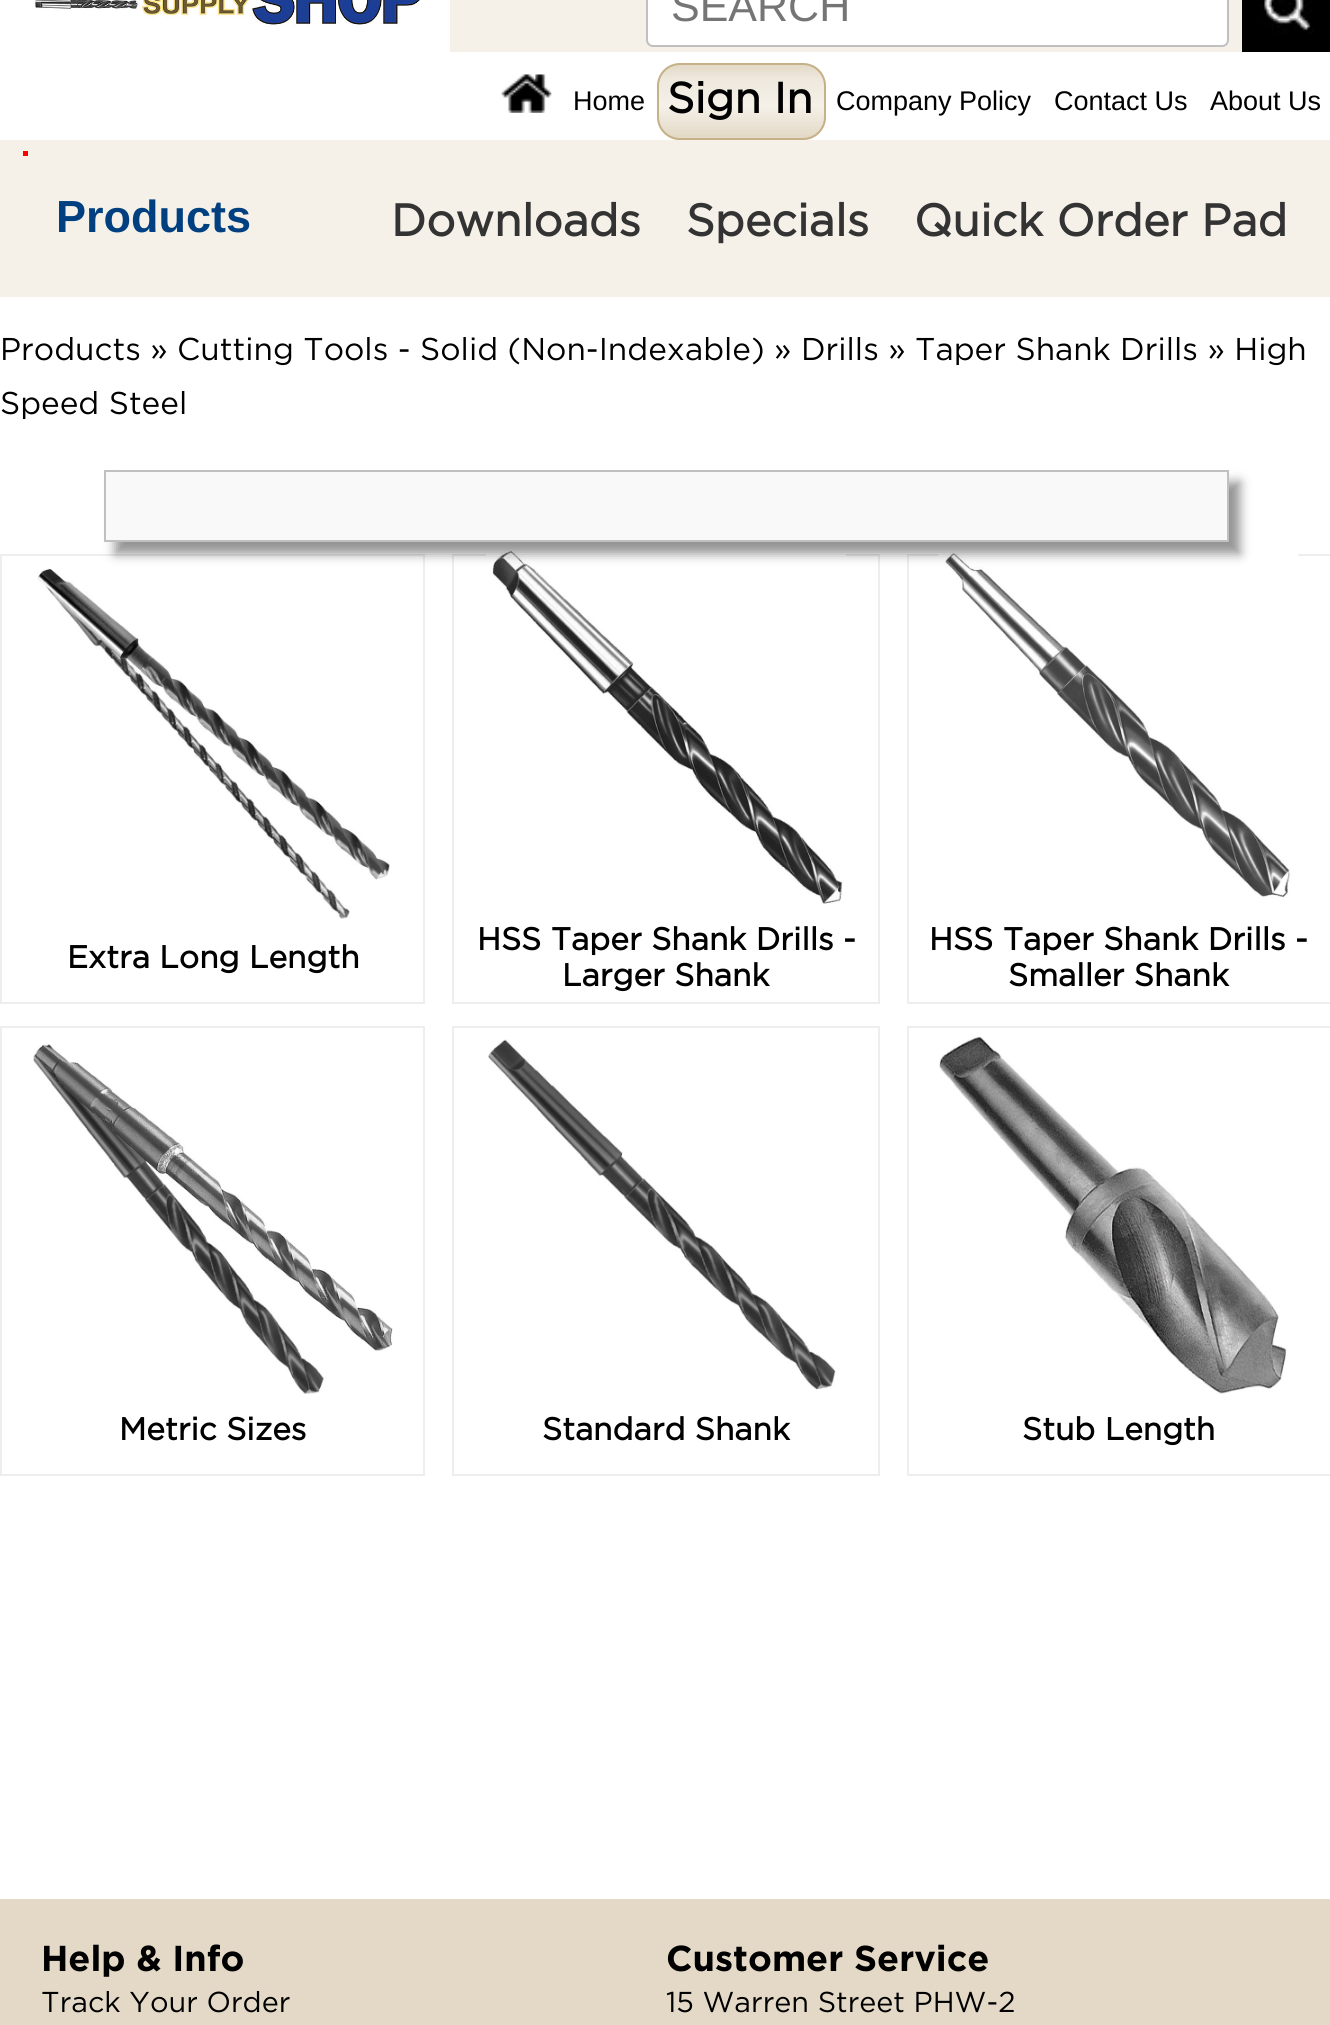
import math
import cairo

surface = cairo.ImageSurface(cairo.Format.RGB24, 1330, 2025)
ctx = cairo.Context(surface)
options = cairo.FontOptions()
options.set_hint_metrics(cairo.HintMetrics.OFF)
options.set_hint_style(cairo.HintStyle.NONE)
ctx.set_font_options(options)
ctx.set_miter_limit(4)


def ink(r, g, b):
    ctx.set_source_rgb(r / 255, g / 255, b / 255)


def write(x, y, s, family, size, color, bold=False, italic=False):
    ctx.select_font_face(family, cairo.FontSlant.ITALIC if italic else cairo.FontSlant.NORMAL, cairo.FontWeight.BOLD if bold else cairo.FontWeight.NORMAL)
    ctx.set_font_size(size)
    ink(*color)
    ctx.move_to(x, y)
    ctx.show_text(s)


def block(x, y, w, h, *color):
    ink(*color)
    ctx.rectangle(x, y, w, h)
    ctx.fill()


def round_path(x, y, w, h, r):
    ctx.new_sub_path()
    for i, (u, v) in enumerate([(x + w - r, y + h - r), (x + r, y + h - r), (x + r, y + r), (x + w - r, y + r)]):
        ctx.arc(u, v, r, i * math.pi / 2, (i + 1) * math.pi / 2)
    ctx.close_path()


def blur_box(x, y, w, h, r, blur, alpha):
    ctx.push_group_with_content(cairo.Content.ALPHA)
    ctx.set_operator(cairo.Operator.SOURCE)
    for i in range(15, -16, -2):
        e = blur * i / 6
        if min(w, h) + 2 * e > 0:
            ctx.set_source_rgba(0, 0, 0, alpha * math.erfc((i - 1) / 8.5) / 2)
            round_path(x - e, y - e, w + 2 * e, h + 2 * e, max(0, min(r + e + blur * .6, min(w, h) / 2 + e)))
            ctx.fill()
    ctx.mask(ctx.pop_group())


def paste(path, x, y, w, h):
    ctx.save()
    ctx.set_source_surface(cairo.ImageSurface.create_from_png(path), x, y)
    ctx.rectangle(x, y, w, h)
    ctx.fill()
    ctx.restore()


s1 = dict(family="Liberation Sans", size=43, color=(117, 117, 117))
s2 = dict(family="Liberation Sans", size=27, color=(0, 0, 0))
s3 = dict(family="Gotham", size=43, color=(0, 0, 0), bold=True)
s4 = dict(family="Liberation Sans", size=45, color=(0, 64, 128), bold=True)
s5 = dict(family="Gotham", size=45, color=(51, 51, 51), bold=True)
s6 = dict(family="Gotham", size=31.5, color=(0, 0, 0))
s7 = dict(family="Gotham", size=31.5, color=(0, 0, 0), bold=True)
s8 = dict(family="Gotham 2", size=36, color=(0, 0, 0), bold=True)
s9 = dict(family="Gotham", size=28.75, color=(0, 0, 0))

ink(255, 255, 255)
ctx.paint()
block(450, 0, 792, 52, 245, 241, 233)
paste("pic1.png", 34, 0, 387, 27)
ink(255, 255, 255)
round_path(647, -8, 581, 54, 6)
ctx.fill_preserve()
ink(192, 192, 192)
ctx.stroke()
write(671, 21, "SEARCH", **s1)
paste("pic2.png", 1242, 0, 88, 52)
paste("pic3.png", 501, 74, 51, 39)
write(573, 110, "Home", **s2)
ctx.save()
round_path(657, 63, 169, 77, 23)
ctx.clip()
gradient = cairo.LinearGradient(741, 65, 741, 137)
gradient.add_color_stop_rgba(0, 0.89, 0.851, 0.776, 1)
gradient.add_color_stop_rgba(0.19, 0.933, 0.91, 0.867, 1)
gradient.add_color_stop_rgba(0.57, 0.961, 0.945, 0.914, 1)
gradient.add_color_stop_rgba(1, 0.89, 0.851, 0.776, 1)
ctx.set_source(gradient)
ctx.rectangle(657, 65, 169, 72)
ctx.fill()
gradient = cairo.LinearGradient(741, 137, 741, 209)
gradient.add_color_stop_rgba(0, 0.89, 0.851, 0.776, 1)
gradient.add_color_stop_rgba(0.19, 0.933, 0.91, 0.867, 1)
gradient.add_color_stop_rgba(0.57, 0.961, 0.945, 0.914, 1)
gradient.add_color_stop_rgba(1, 0.89, 0.851, 0.776, 1)
ctx.set_source(gradient)
ctx.rectangle(668, 137, 147, 3)
ctx.fill()
ctx.restore()
round_path(658, 64, 167, 75, 22)
ink(198, 177, 136)
ctx.stroke()
write(667, 113, "Sign In", **s3)
write(836, 110, "Company Policy", **s2)
write(1054, 110, "Contact Us", **s2)
write(1210, 110, "About Us", **s2)
block(0, 140, 1330, 157, 245, 241, 233)
block(23, 151, 5, 5, 255, 0, 0)
write(56, 232, "Products", **s4)
write(391, 236, "Downloads", **s5)
write(686, 236, "Specials", **s5)
write(914, 236, "Quick Order Pad", **s5)
write(0, 360, "Products » Cutting Tools - Solid (Non-Indexable) » Drills » Taper Shank Drills » High", **s6)
write(0, 414, "Speed Steel", **s6)
ctx.rectangle(1, 555, 423, 448)
ink(238, 238, 238)
ctx.stroke()
paste("pic4.png", 37, 569, 353, 350)
write(67, 968, "Extra Long Length", **s7)
ctx.rectangle(453, 555, 426, 448)
ink(238, 238, 238)
ctx.stroke()
paste("pic5.png", 486, 550, 360, 354)
write(477, 950, "HSS Taper Shank Drills -", **s7)
write(562, 986, "Larger Shank", **s7)
ctx.rectangle(908, 555, 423, 448)
ink(238, 238, 238)
ctx.stroke()
paste("pic6.png", 938, 553, 361, 345)
write(929, 950, "HSS Taper Shank Drills -", **s7)
write(1008, 986, "Smaller Shank", **s7)
ctx.rectangle(1, 1027, 423, 448)
ink(238, 238, 238)
ctx.stroke()
paste("pic7.png", 33, 1044, 360, 350)
write(119, 1440, "Metric Sizes", **s7)
ctx.rectangle(453, 1027, 426, 448)
ink(238, 238, 238)
ctx.stroke()
paste("pic8.png", 488, 1039, 348, 351)
write(542, 1440, "Standard Shank", **s7)
ctx.rectangle(908, 1027, 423, 448)
ink(238, 238, 238)
ctx.stroke()
paste("pic9.png", 939, 1036, 348, 358)
write(1022, 1440, "Stub Length", **s7)
ink(0, 0, 0)
blur_box(115, 482, 1125, 72, 0, 5.5, 0.42)
ink(249, 249, 249)
ctx.rectangle(105, 471, 1123, 70)
ctx.fill_preserve()
ink(192, 192, 192)
ctx.stroke()
block(0, 1899, 1330, 126, 227, 217, 198)
write(41, 1971, "Help & Info", **s8)
write(41, 2012, "Track Your Order", **s9)
write(666, 1971, "Customer Service", **s8)
write(666, 2012, "15 Warren Street PHW-2", **s9)
surface.write_to_png("screenshot.png")
